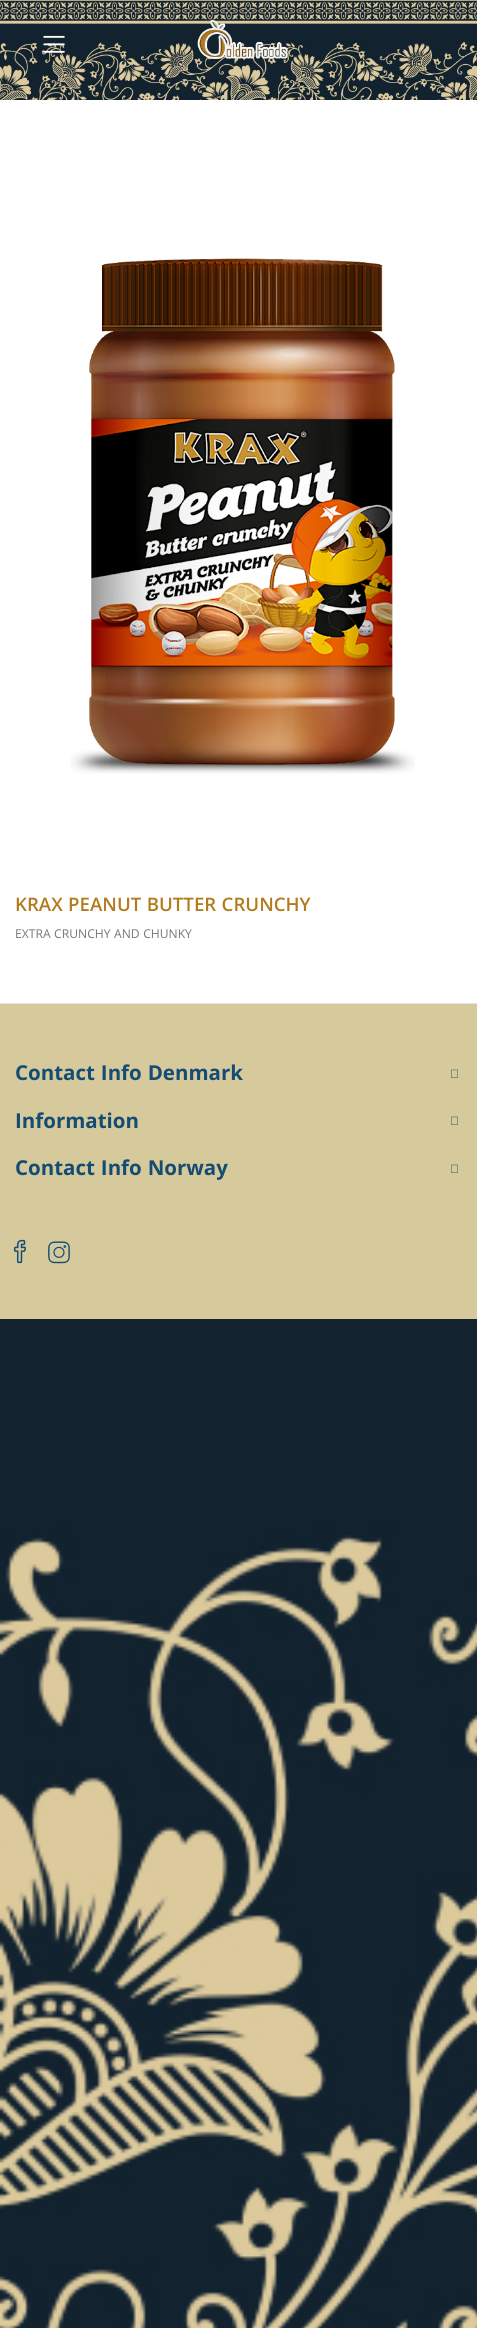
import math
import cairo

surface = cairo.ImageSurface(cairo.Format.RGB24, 477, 2328)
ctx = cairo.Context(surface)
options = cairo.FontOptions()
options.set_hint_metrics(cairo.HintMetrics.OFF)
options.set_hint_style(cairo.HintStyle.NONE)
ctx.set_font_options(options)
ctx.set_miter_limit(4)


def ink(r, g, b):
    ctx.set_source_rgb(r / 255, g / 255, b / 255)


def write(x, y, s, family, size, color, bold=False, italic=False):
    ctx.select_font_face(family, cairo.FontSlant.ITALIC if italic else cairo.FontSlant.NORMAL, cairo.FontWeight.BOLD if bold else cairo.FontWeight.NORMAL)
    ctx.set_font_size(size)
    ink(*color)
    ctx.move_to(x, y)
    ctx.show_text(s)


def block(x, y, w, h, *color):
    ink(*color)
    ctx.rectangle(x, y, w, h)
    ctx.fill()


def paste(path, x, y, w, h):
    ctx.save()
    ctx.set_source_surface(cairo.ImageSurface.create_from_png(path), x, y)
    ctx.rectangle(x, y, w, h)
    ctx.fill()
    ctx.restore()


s1 = dict(family="Khula SemiBold", size=20, color=(179, 123, 29))
s2 = dict(family="Khula", size=13, color=(119, 119, 119))
s3 = dict(family="Khula", size=22, color=(21, 76, 115), bold=True)

ink(255, 255, 255)
ctx.paint()
paste("pic1.png", 0, 0, 477, 100)
paste("pic2.png", 43, 35, 22, 18)
paste("pic3.png", 197, 19, 91, 40)
paste("pic4.png", 70, 258, 345, 516)
write(15, 911, "KRAX PEANUT BUTTER CRUNCHY", **s1)
write(15, 938, "EXTRA CRUNCHY AND CHUNKY", **s2)
block(0, 1004, 477, 315, 214, 201, 156)
block(0, 1003, 477, 1, 225, 225, 225)
write(15, 1080, "Contact Info Denmark", **s3)
paste("pic5.png", 451, 1069, 7, 9)
write(15, 1128, "Information", **s3)
paste("pic5.png", 451, 1116, 7, 9)
write(15, 1175, "Contact Info Norway", **s3)
paste("pic5.png", 451, 1164, 7, 9)
paste("pic6.png", 13, 1239, 13, 25)
paste("pic7.png", 48, 1241, 22, 23)
paste("pic8.png", 0, 1319, 477, 1009)
surface.write_to_png("screenshot.png")
